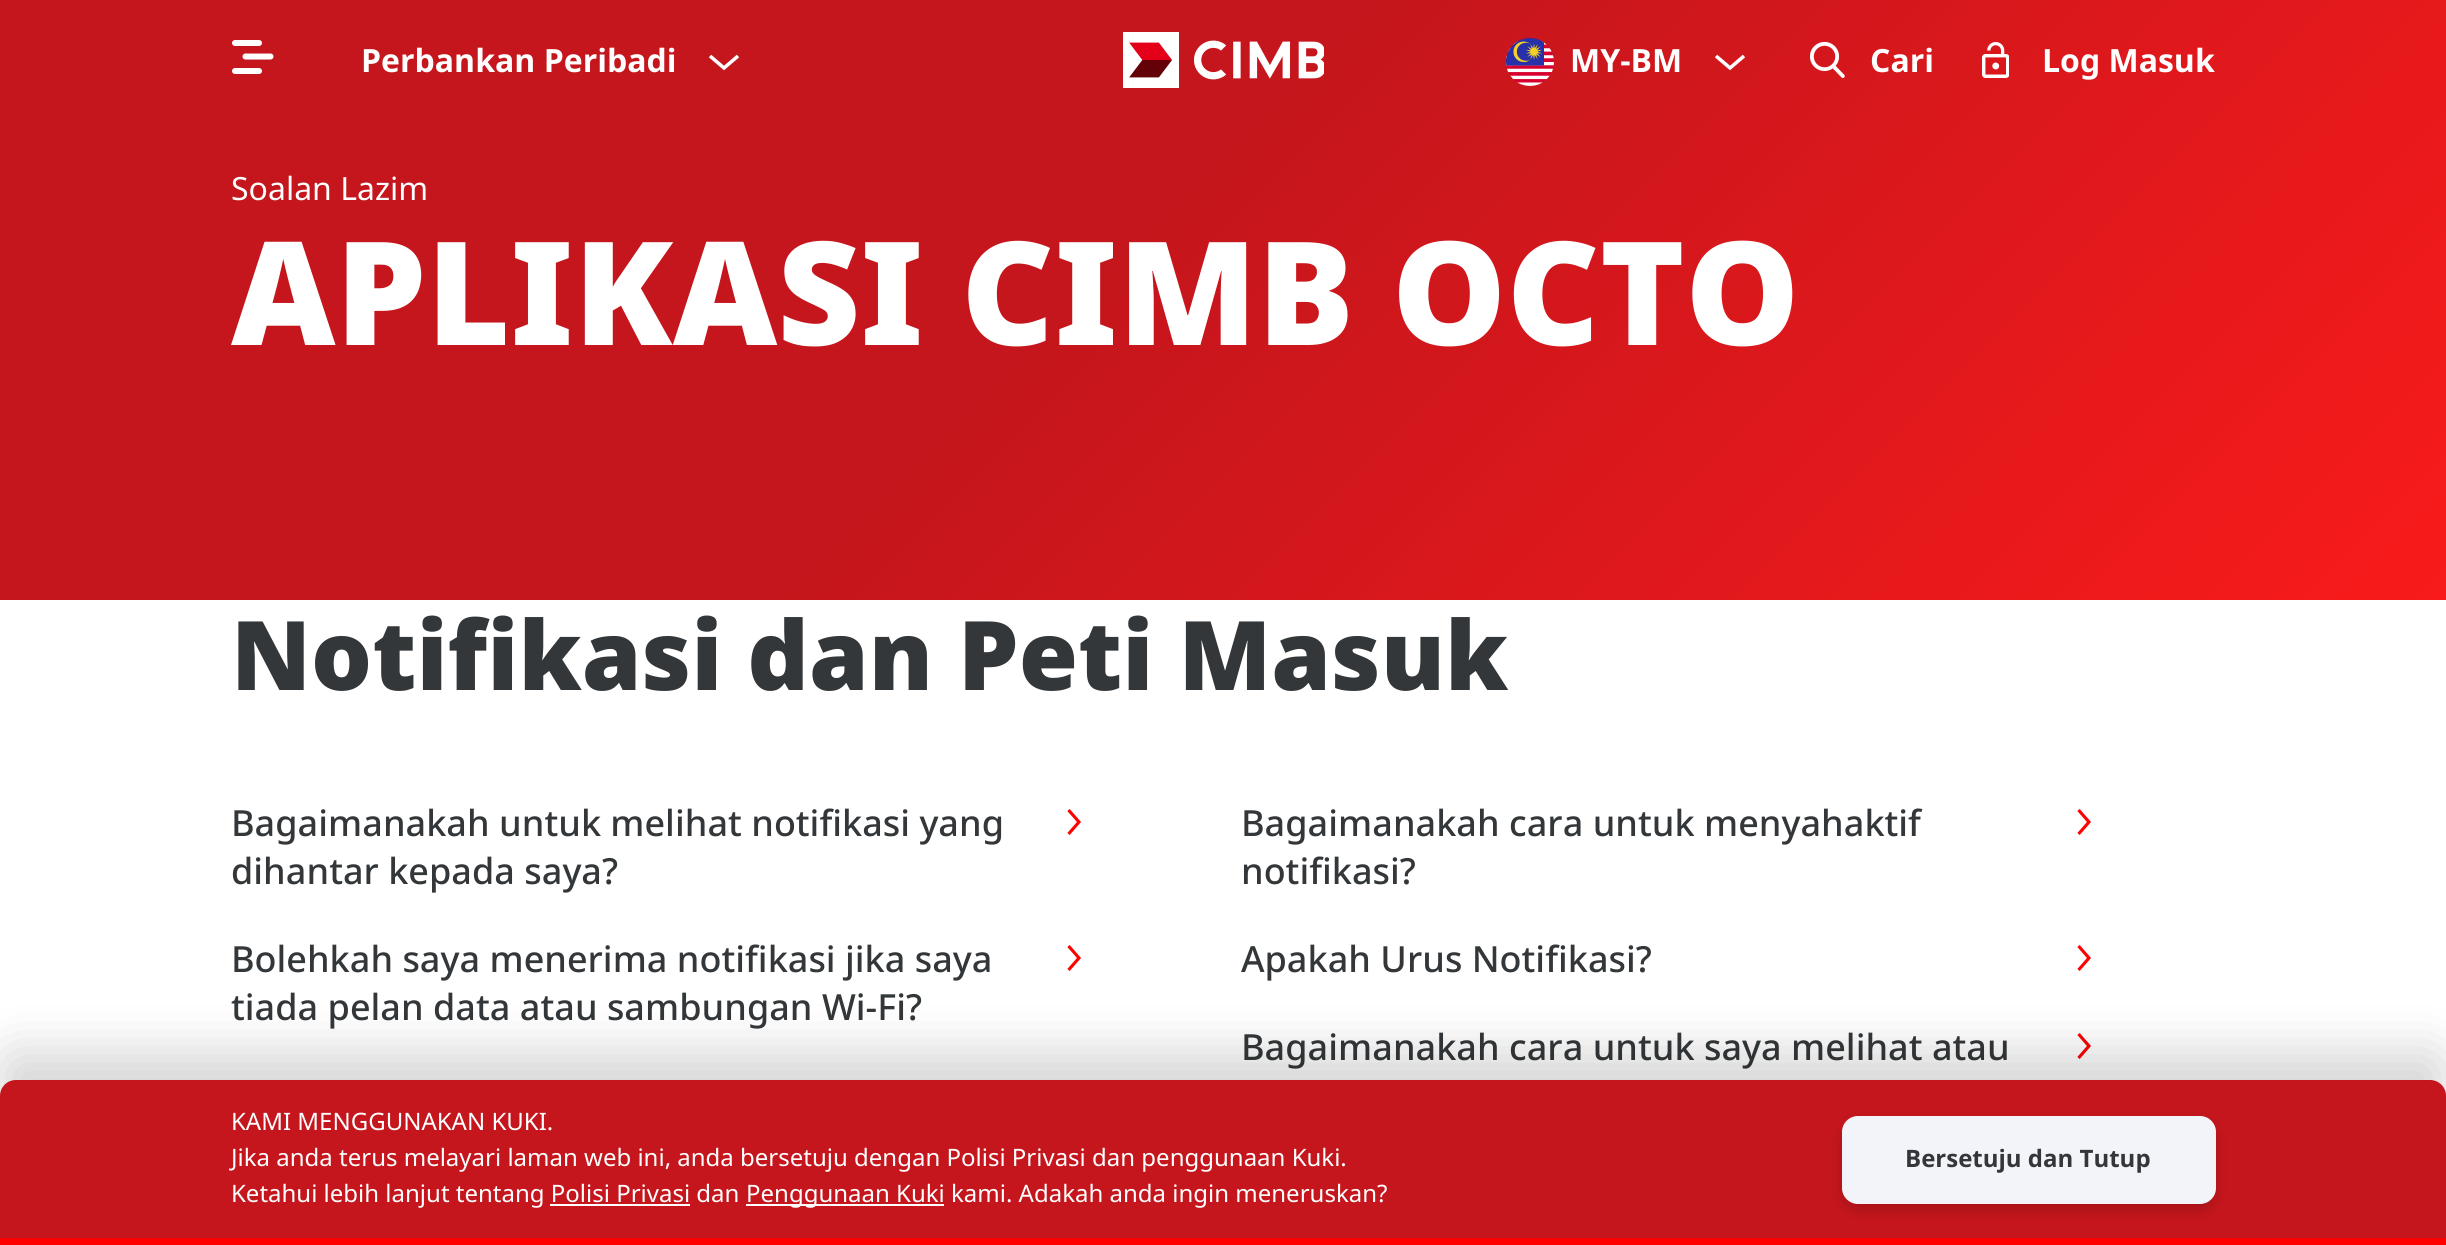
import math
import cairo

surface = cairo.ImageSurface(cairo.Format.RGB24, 2446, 1245)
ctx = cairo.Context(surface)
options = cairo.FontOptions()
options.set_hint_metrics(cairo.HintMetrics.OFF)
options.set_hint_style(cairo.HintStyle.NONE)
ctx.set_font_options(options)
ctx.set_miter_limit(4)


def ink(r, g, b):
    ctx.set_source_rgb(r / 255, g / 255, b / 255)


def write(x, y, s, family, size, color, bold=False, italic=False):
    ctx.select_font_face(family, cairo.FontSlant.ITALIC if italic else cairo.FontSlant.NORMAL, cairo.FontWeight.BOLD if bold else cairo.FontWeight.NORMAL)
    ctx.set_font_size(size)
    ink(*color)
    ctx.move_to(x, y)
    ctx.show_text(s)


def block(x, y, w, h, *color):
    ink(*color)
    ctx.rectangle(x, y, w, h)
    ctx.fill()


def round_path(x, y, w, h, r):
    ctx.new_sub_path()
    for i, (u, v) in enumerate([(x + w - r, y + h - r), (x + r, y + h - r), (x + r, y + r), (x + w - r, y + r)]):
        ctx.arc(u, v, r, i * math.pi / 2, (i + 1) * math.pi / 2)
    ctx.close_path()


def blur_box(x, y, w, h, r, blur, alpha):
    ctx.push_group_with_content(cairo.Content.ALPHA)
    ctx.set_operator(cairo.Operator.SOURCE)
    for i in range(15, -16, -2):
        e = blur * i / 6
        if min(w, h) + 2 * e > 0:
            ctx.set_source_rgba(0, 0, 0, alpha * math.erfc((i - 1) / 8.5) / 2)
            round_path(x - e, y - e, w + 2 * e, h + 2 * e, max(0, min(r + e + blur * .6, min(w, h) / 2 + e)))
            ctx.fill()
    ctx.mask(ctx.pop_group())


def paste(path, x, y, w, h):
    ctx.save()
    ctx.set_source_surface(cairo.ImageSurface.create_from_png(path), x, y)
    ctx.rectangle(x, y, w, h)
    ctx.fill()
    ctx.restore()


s1 = dict(family="Noto Sans", size=32, color=(255, 255, 255), bold=True)
s2 = dict(family="Noto Sans", size=32, color=(255, 255, 255))
s3 = dict(family="Noto Sans Black", size=144, color=(255, 255, 255))
s4 = dict(family="Noto Sans Black", size=96, color=(51, 55, 57))
s5 = dict(family="Noto Sans Medium", size=36, color=(51, 55, 57))
s6 = dict(family="Noto Sans", size=24, color=(255, 255, 255))
s7 = dict(family="Noto Sans", size=24, color=(51, 55, 57), bold=True)

ink(255, 255, 255)
ctx.paint()
gradient = cairo.LinearGradient(2061, 1138, 461, -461)
gradient.add_color_stop_rgba(0, 0.996, 0.106, 0.106, 1)
gradient.add_color_stop_rgba(0.57, 0.769, 0.086, 0.11, 1)
ctx.set_source(gradient)
ctx.rectangle(0, 0, 2446, 600)
ctx.fill()
ctx.new_path()
ctx.move_to(245.5, 56.5)
ctx.line_to(270.5, 56.5)
ctx.move_to(259, 71)
ctx.line_to(235, 71)
ctx.move_to(259, 43)
ctx.line_to(235, 43)
ink(255, 255, 255)
ctx.set_line_width(6)
ctx.set_line_cap(cairo.LineCap.ROUND)
ctx.stroke()
write(361, 72, "Perbankan Peribadi", **s1)
ctx.new_path()
ctx.move_to(738, 56)
ctx.line_to(724, 68)
ctx.line_to(710, 56)
ctx.set_line_width(3.5)
ctx.set_line_cap(cairo.LineCap.BUTT)
ctx.stroke()
paste("pic1.png", 1123, 32, 201, 56)
paste("pic2.png", 1506, 38, 48, 48)
write(1570, 72, "MY-BM", **s1)
ctx.new_path()
ctx.move_to(1744, 56)
ctx.line_to(1730, 68)
ctx.line_to(1716, 56)
ctx.stroke()
paste("pic3.png", 1810, 42, 35, 36)
write(1870, 72, "Cari", **s1)
paste("pic4.png", 1982, 42, 27, 36)
write(2042, 72, "Log Masuk", **s1)
write(231, 200, "Soalan Lazim", **s2)
write(231, 345, "APLIKASI CIMB OCTO", **s3)
write(231, 690, "Notifikasi dan Peti Masuk", **s4)
write(231, 836, "Bagaimanakah untuk melihat notifikasi yang", **s5)
write(231, 884, "dihantar kepada saya?", **s5)
ctx.new_path()
ctx.move_to(1068.5, 834)
ctx.line_to(1079, 822)
ctx.line_to(1068.5, 810)
ink(255, 0, 0)
ctx.set_line_width(3.1)
ctx.stroke()
write(1241, 836, "Bagaimanakah cara untuk menyahaktif", **s5)
write(1241, 884, "notifikasi?", **s5)
ctx.new_path()
ctx.move_to(2078.5, 834)
ctx.line_to(2089, 822)
ctx.line_to(2078.5, 810)
ink(255, 0, 0)
ctx.stroke()
write(231, 972, "Bolehkah saya menerima notifikasi jika saya", **s5)
write(231, 1020, "tiada pelan data atau sambungan Wi-Fi?", **s5)
ctx.new_path()
ctx.move_to(1068.5, 970)
ctx.line_to(1079, 958)
ctx.line_to(1068.5, 946)
ink(255, 0, 0)
ctx.stroke()
write(1241, 972, "Apakah Urus Notifikasi?", **s5)
ctx.new_path()
ctx.move_to(2078.5, 970)
ctx.line_to(2089, 958)
ctx.line_to(2078.5, 946)
ink(255, 0, 0)
ctx.stroke()
write(1241, 1060, "Bagaimanakah cara untuk saya melihat atau", **s5)
ctx.new_path()
ctx.move_to(2078.5, 1058)
ctx.line_to(2089, 1046)
ctx.line_to(2078.5, 1034)
ink(255, 0, 0)
ctx.stroke()
ink(0, 0, 0)
blur_box(0, 1050, 2446, 166, 16, 25, 0.16)
ink(196, 22, 28)
ctx.new_path()
ctx.move_to(16, 1080)
ctx.line_to(2430, 1080)
ctx.curve_to(2439, 1080, 2446, 1087, 2446, 1096)
ctx.line_to(2446, 1238)
ctx.line_to(0, 1238)
ctx.line_to(0, 1096)
ctx.curve_to(0, 1087, 7, 1080, 16, 1080)
ctx.close_path()
ctx.fill()
block(0, 1238, 2446, 7, 255, 0, 0)
write(231, 1130, "KAMI MENGGUNAKAN KUKI.", **s6)
write(231, 1166, "Jika anda terus melayari laman web ini, anda bersetuju dengan Polisi Privasi dan penggunaan Kuki.", **s6)
write(231, 1202, "Ketahui lebih lanjut tentang Polisi Privasi dan", **s6)
block(746, 1204, 198, 2, 255, 255, 255)
write(746, 1202, "Penggunaan Kuki kami. Adakah anda ingin meneruskan?", **s6)
block(550, 1204, 140, 2, 255, 255, 255)
ink(0, 0, 0)
blur_box(1842, 1122, 374, 88, 16, 6, 0.16)
ink(243, 244, 250)
round_path(1842, 1116, 374, 88, 16)
ctx.fill()
write(1905, 1167, "Bersetuju dan Tutup", **s7)
surface.write_to_png("screenshot.png")
